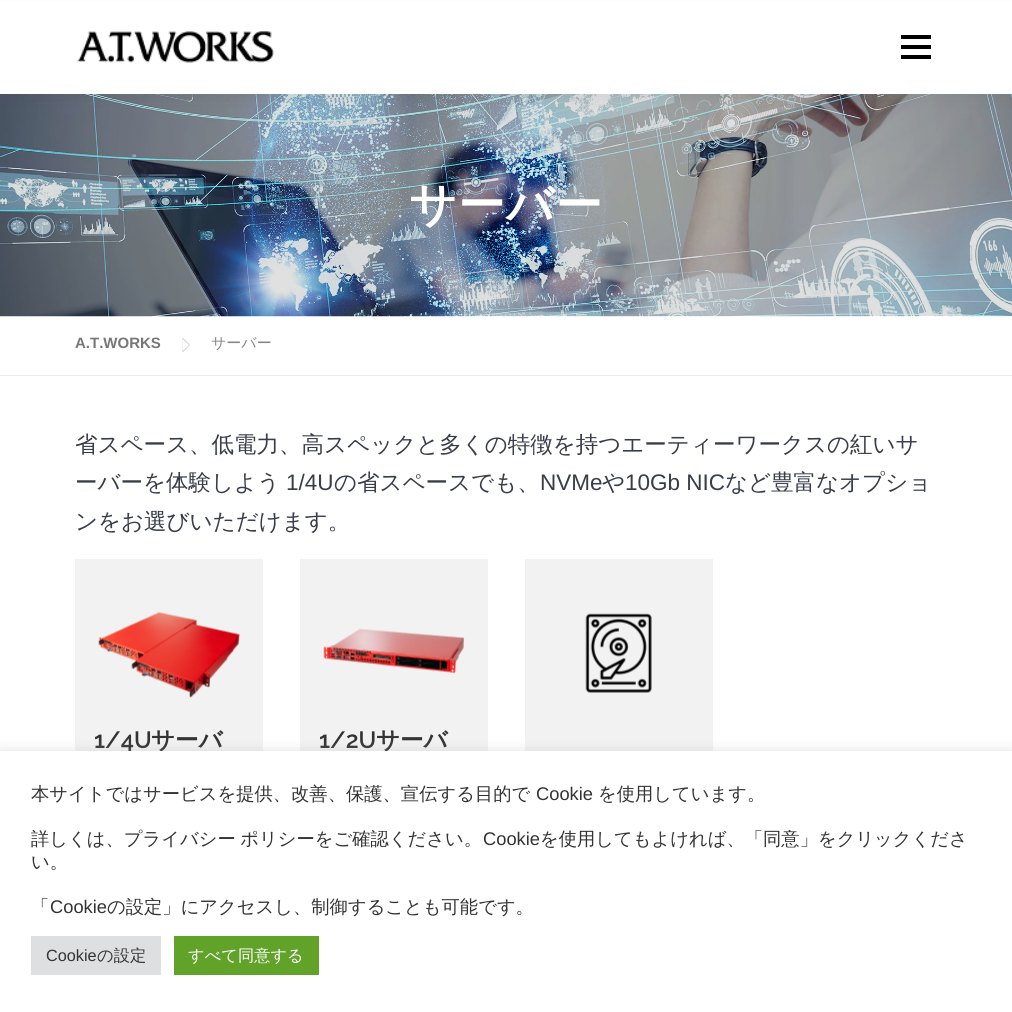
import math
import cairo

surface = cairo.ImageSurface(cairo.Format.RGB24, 1012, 1012)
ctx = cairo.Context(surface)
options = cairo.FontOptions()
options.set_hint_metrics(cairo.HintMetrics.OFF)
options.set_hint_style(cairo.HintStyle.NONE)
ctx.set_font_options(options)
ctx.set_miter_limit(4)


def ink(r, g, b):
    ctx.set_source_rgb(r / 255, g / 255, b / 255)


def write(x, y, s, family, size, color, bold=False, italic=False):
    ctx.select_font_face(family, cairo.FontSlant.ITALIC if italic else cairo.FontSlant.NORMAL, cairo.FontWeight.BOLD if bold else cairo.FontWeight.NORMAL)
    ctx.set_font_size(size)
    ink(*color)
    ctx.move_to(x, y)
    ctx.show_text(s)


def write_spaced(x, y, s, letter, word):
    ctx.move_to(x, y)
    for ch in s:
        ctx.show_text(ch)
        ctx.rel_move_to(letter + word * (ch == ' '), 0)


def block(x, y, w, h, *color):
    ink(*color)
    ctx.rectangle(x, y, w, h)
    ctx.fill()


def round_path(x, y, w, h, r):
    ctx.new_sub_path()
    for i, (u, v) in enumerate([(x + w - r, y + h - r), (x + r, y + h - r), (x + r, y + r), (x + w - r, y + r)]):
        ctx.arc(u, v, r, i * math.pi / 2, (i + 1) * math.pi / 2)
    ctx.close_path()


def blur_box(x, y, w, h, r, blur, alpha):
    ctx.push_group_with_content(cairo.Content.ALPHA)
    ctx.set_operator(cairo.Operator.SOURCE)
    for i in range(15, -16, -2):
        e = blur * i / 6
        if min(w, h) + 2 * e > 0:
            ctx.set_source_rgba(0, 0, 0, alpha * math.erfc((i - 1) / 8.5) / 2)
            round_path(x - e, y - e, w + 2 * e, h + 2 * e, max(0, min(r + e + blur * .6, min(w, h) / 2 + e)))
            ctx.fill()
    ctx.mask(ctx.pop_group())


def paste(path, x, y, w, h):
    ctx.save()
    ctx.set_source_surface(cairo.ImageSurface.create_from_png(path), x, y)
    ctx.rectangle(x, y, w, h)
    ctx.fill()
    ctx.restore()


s1 = dict(family="Liberation Sans", size=15, color=(119, 119, 119), bold=True)
s2 = dict(family="WenQuanYi Zen Hei Medium", size=15, color=(133, 133, 133))
s3 = dict(family="WenQuanYi Zen Hei Medium", size=22.5, color=(57, 60, 74))
s4 = dict(family="Liberation Sans", size=22.5, color=(57, 60, 74))
s5 = dict(family="Raleway SemiBold", size=23.5, color=(51, 51, 51))
s6 = dict(family="WenQuanYi Zen Hei", size=23.5, color=(51, 51, 51), bold=True)
s7 = dict(family="WenQuanYi Zen Hei Medium", size=18.3, color=(51, 51, 51))
s8 = dict(family="Liberation Sans", size=18.3, color=(51, 51, 51))
s9 = dict(family="Liberation Sans", size=16.25, color=(51, 51, 51))
s10 = dict(family="WenQuanYi Zen Hei Medium", size=16.25, color=(51, 51, 51))
s11 = dict(family="WenQuanYi Zen Hei Medium", size=16.25, color=(255, 255, 255))

ink(255, 255, 255)
ctx.paint()
paste("pic2.png", 0, 94, 1012, 223)
ink(50, 50, 50)
blur_box(0, 6, 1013, 94, 0, 6, 0.06)
block(0, 1, 1012, 93, 255, 255, 255)
paste("pic1.png", 77, 31, 197, 32)
block(901, 45, 30, 4, 0, 0, 0)
block(901, 35, 30, 4, 0, 0, 0)
block(901, 55, 30, 4, 0, 0, 0)
ctx.select_font_face("WenQuanYi Zen Hei", cairo.FontSlant.NORMAL, cairo.FontWeight.BOLD)
ctx.set_font_size(47)
ink(255, 255, 255)
write_spaced(409, 221, "サーバー", 1, 0)
block(0, 375, 1012, 1, 233, 233, 233)
write(75, 348, "A.T.WORKS", **s1)
ink(204, 204, 204)
ctx.new_path()
ctx.move_to(182.5, 352.5)
ctx.line_to(182.5, 337.5)
ctx.line_to(190, 345)
ctx.close_path()
ctx.fill()
ink(255, 255, 255)
ctx.new_path()
ctx.move_to(182.5, 351)
ctx.line_to(182.5, 339)
ctx.line_to(189, 345)
ctx.close_path()
ctx.fill()
write(211, 348, "サーバー", **s2)
write(75, 452, "省スペース、低電力、高スペックと多くの特徴を持つエーティーワークスの紅いサ", **s3)
write(75, 490, "ーバーを体験しよう", **s3)
write(286, 490, "1/4U", **s4)
write(334, 490, "の省スペースでも、", **s3)
write(540, 490, "NVMe", **s4)
write(602, 490, "や", **s3)
write(625, 490, "10Gb NIC", **s4)
write(725, 490, "など豊富なオプショ", **s3)
write(75, 529, "ンをお選びいただけます。", **s3)
block(75, 559, 188, 192, 242, 242, 242)
paste("pic3.png", 98, 612, 142, 86)
write(94, 748, "1/4U", **s5)
write(151, 748, "サーバ", **s6)
block(300, 559, 188, 192, 242, 242, 242)
paste("pic4.png", 323, 628, 142, 46)
write(319, 748, "1/2U", **s5)
write(376, 748, "サーバ", **s6)
block(525, 559, 188, 192, 242, 242, 242)
paste("pic5.png", 585, 613, 67, 80)
ink(172, 171, 171)
blur_box(0, 750, 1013, 261, 0, 6, 0.3)
block(0, 751, 1012, 261, 255, 255, 255)
write(31, 800, "本サイトではサービスを提供、改善、保護、宣伝する目的で", **s7)
write(536, 800, "Cookie", **s8)
write(598, 800, "を使用しています。", **s7)
write_spaced(31, 845, "詳しくは、プライバシー ポリシーをご確認ください。", 0, -1)
write(483, 845, "Cookie", **s8)
write(540, 845, "を使用してもよければ、「同意」をクリックくださ", **s7)
write(31, 868, "い。", **s7)
write(31, 913, "「", **s7)
write(50, 913, "Cookie", **s8)
write(107, 913, "の設定」にアクセスし、制御することも可能です。", **s7)
block(31, 936, 130, 39, 222, 223, 224)
write(46, 961, "Cookie", **s9)
write(97, 961, "の設定", **s10)
block(174, 936, 145, 39, 97, 162, 41)
write(188, 961, "すべて同意する", **s11)
surface.write_to_png("screenshot.png")
